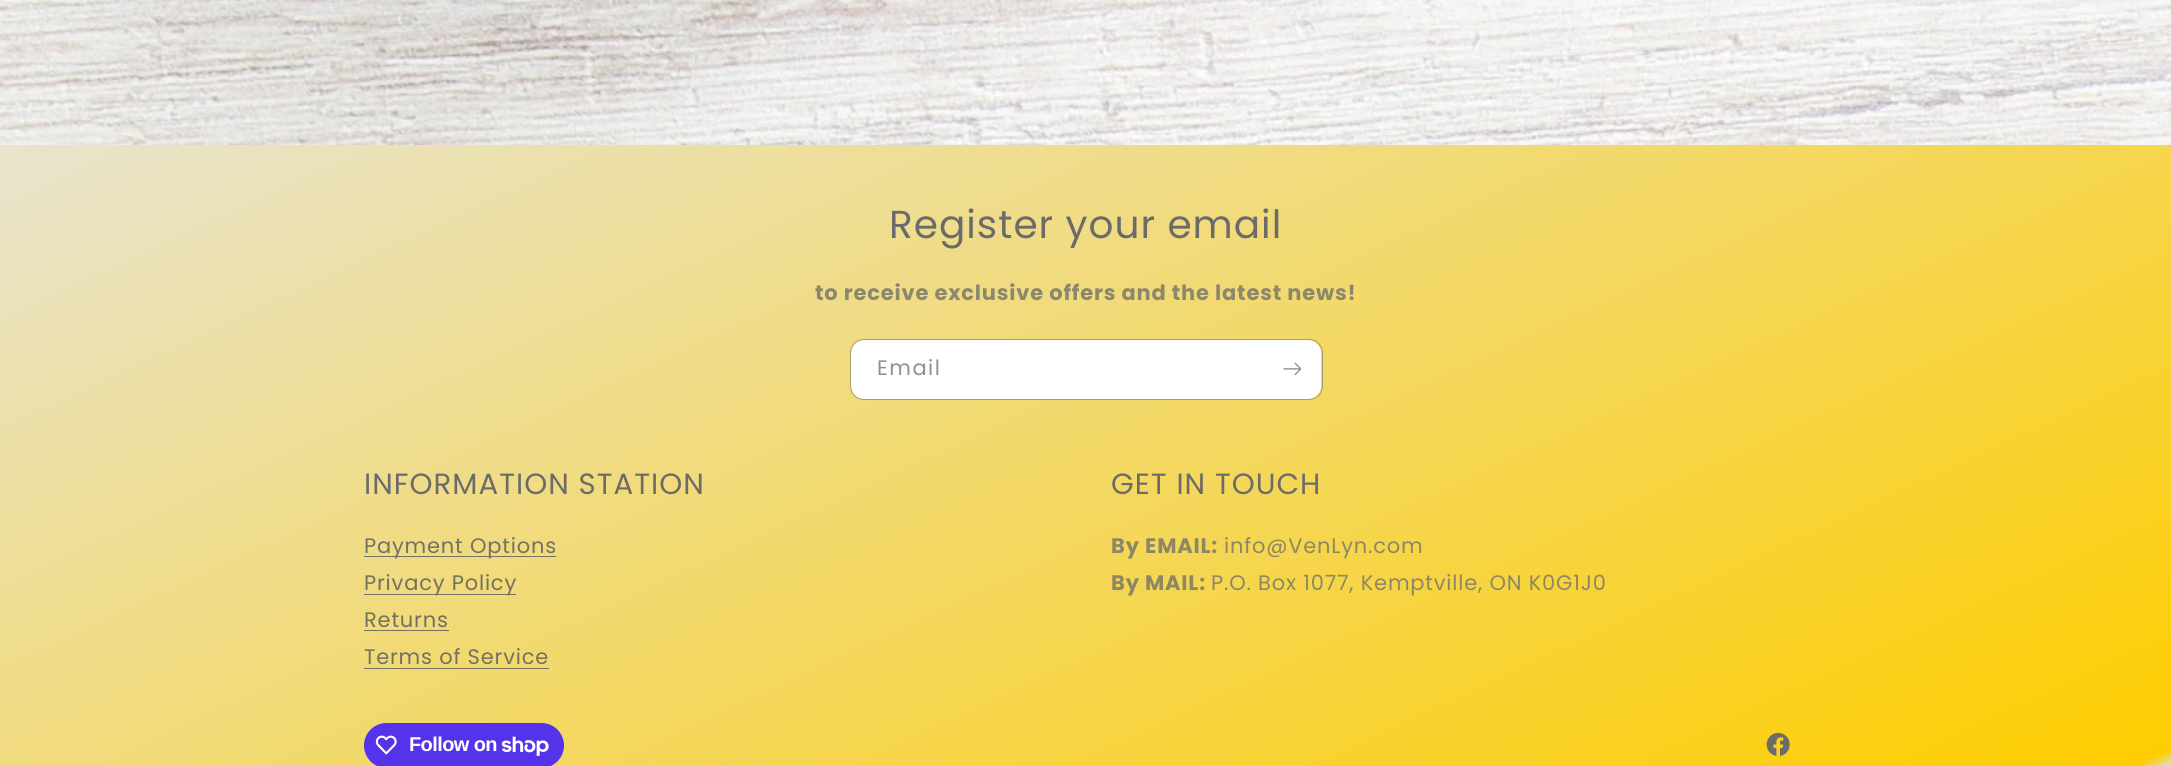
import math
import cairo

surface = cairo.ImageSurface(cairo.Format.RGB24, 2171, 766)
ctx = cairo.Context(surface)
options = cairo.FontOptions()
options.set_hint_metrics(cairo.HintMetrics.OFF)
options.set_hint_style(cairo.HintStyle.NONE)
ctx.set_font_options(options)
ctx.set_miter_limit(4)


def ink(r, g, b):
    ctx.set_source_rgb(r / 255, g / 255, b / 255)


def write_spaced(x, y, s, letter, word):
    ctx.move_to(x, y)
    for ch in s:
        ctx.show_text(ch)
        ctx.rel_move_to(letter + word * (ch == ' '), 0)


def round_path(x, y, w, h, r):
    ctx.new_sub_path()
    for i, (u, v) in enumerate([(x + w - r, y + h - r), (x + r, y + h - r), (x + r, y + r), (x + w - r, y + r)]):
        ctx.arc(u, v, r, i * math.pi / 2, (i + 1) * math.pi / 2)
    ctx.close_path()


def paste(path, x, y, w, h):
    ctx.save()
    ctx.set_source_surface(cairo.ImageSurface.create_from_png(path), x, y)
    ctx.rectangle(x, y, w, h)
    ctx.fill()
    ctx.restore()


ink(255, 255, 255)
ctx.paint()
paste("pic1.png", 0, 0, 2171, 145)
gradient = cairo.LinearGradient(745, -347, 1426, 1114)
gradient.add_color_stop_rgba(0, 0.902, 0.902, 0.882, 1)
gradient.add_color_stop_rgba(0.99, 0.996, 0.804, 0, 1)
gradient.add_color_stop_rgba(1, 0.863, 0.871, 0.847, 1)
ctx.set_source(gradient)
ctx.rectangle(0, 145, 2171, 265)
ctx.fill()
ctx.select_font_face("Poppins")
ctx.set_font_size(39)
ink(107, 108, 105)
write_spaced(889, 238, "Register your email", 1, 0)
ctx.select_font_face("Poppins", cairo.FontSlant.NORMAL, cairo.FontWeight.BOLD)
ctx.set_font_size(21)
ink(140, 136, 109)
write_spaced(815, 300, "to receive exclusive offers and the latest news!", 0.8, 0)
ink(255, 255, 255)
round_path(851, 340, 470, 59, 13)
ctx.fill()
round_path(850.5, 339.5, 472, 60, 13.5)
ctx.set_source_rgba(0.42, 0.424, 0.412, 0.55)
ctx.set_line_width(1)
ctx.stroke()
ctx.select_font_face("Poppins")
ink(144, 145, 143)
write_spaced(877, 375, "Email", 1.5, 0)
paste("pic2.png", 1283, 362, 18, 14)
gradient = cairo.LinearGradient(745, -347, 1426, 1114)
gradient.add_color_stop_rgba(0, 0.902, 0.902, 0.882, 1)
gradient.add_color_stop_rgba(0.99, 0.996, 0.804, 0, 1)
gradient.add_color_stop_rgba(1, 0.863, 0.871, 0.847, 1)
ctx.set_source(gradient)
ctx.rectangle(0, 410, 2171, 356)
ctx.fill()
ctx.set_font_size(29.25)
ink(107, 108, 105)
write_spaced(364, 494, "INFORMATION STATION", 1, 0)
ctx.set_source_rgba(0.365, 0.369, 0.361, 0.85)
ctx.rectangle(364, 556, 192, 1)
ctx.fill()
ctx.set_font_size(21)
ink(115, 113, 97)
write_spaced(364, 553, "Payment Options", 0.8, 0)
ctx.set_source_rgba(0.365, 0.369, 0.361, 0.85)
ctx.rectangle(364, 594, 152, 1)
ctx.fill()
ink(115, 113, 97)
write_spaced(364, 590, "Privacy Policy", 0.8, 0)
write_spaced(364, 627, "Returns", 0.8, 0)
ctx.set_source_rgba(0.365, 0.369, 0.361, 0.85)
ctx.rectangle(364, 630, 85, 1)
ctx.fill()
ink(115, 113, 97)
write_spaced(364, 664, "Terms of Service", 0.8, 0)
ctx.set_source_rgba(0.365, 0.369, 0.361, 0.85)
ctx.rectangle(364, 668, 185, 1)
ctx.fill()
ctx.set_font_size(29.25)
ink(107, 108, 105)
write_spaced(1111, 494, "GET IN TOUCH", 1, 0)
ctx.select_font_face("Poppins", cairo.FontSlant.NORMAL, cairo.FontWeight.BOLD)
ctx.set_font_size(21)
ink(141, 135, 100)
write_spaced(1111, 553, "By EMAIL:", 0.8, 0)
ctx.select_font_face("Poppins")
write_spaced(1224, 553, "info@VenLyn.com", 0.8, 0)
ctx.select_font_face("Poppins", cairo.FontSlant.NORMAL, cairo.FontWeight.BOLD)
write_spaced(1111, 590, "By MAIL:", 0.8, 0)
ctx.select_font_face("Poppins")
write_spaced(1211, 590, "P.O. Box 1077, Kemptville, ON K0G1J0", 0.8, 0)
ink(84, 51, 235)
round_path(364, 723, 200, 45, 22.5)
ctx.fill()
paste("pic3.png", 375, 735, 22, 20)
ctx.select_font_face("Liberation Sans", cairo.FontSlant.NORMAL, cairo.FontWeight.BOLD)
ctx.set_font_size(20)
ink(255, 255, 255)
write_spaced(409, 751, "Follow on", -0.6, 0)
paste("pic4.png", 501, 736, 48, 20)
paste("pic5.png", 1766, 732, 24, 24)
surface.write_to_png("screenshot.png")
